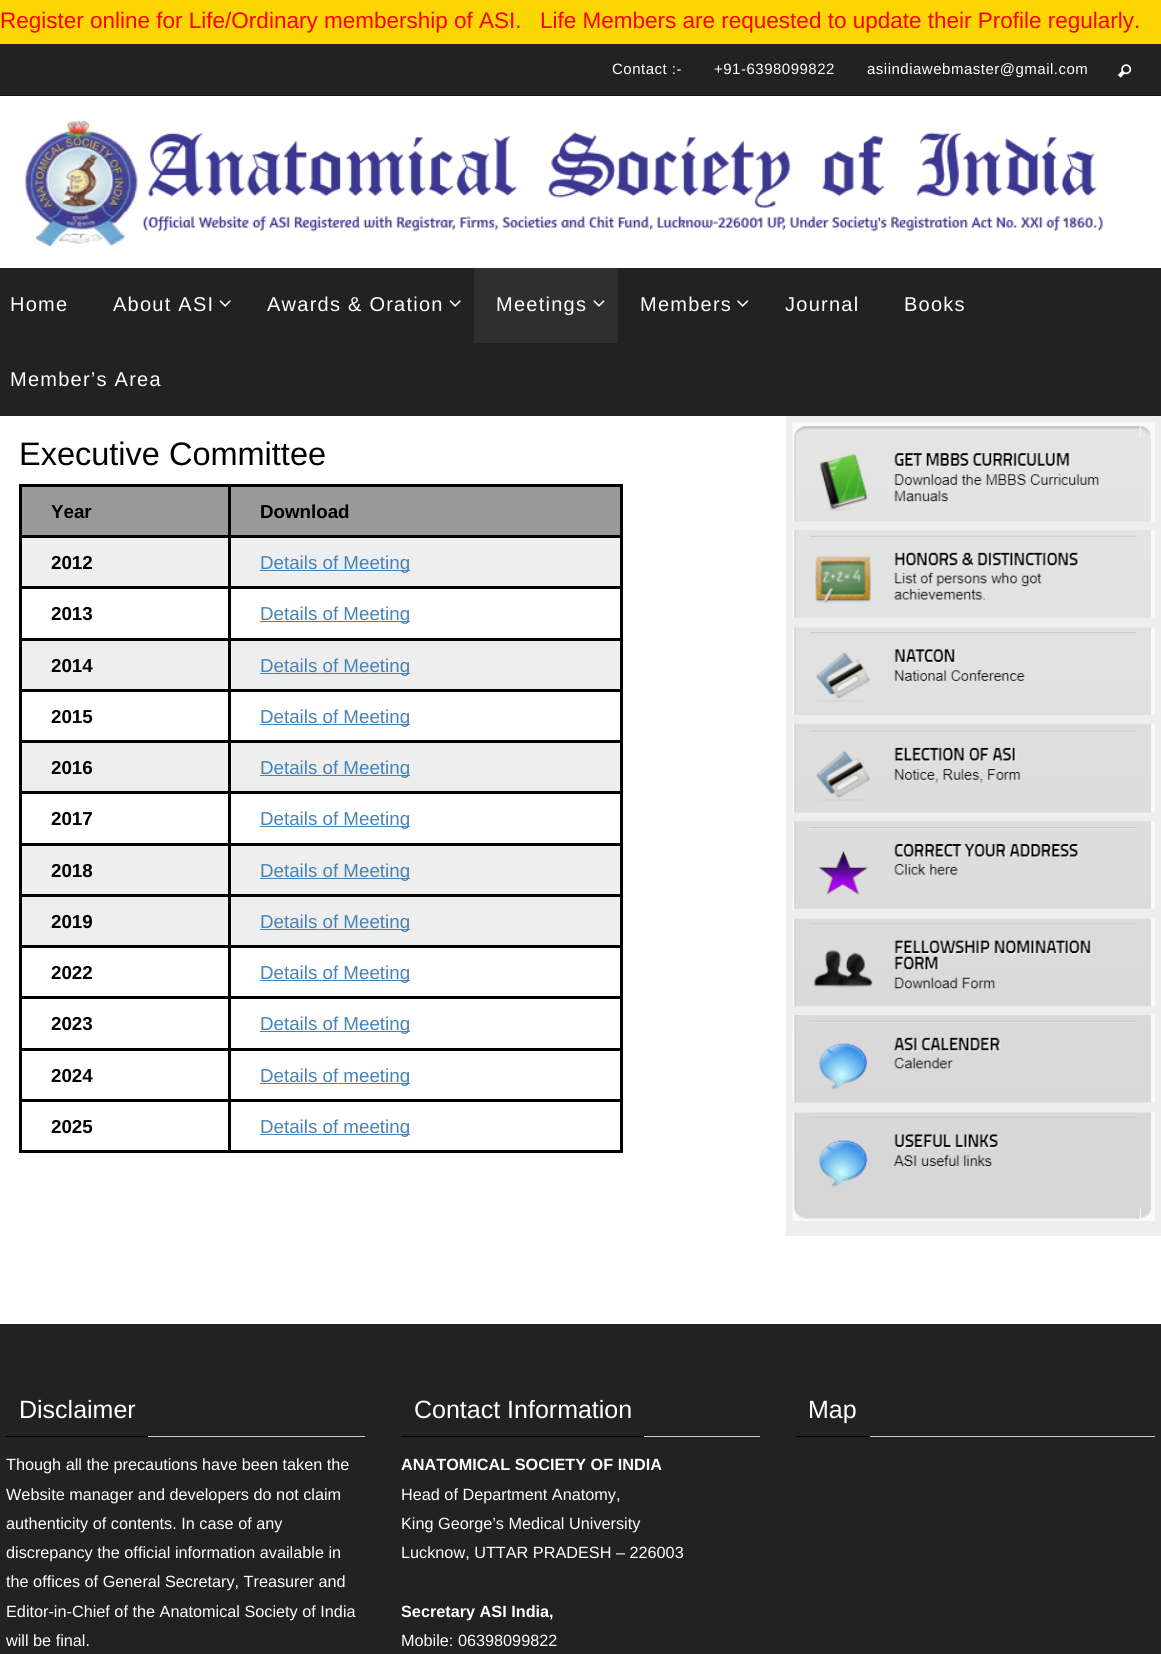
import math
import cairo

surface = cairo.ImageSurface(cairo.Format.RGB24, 1161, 1654)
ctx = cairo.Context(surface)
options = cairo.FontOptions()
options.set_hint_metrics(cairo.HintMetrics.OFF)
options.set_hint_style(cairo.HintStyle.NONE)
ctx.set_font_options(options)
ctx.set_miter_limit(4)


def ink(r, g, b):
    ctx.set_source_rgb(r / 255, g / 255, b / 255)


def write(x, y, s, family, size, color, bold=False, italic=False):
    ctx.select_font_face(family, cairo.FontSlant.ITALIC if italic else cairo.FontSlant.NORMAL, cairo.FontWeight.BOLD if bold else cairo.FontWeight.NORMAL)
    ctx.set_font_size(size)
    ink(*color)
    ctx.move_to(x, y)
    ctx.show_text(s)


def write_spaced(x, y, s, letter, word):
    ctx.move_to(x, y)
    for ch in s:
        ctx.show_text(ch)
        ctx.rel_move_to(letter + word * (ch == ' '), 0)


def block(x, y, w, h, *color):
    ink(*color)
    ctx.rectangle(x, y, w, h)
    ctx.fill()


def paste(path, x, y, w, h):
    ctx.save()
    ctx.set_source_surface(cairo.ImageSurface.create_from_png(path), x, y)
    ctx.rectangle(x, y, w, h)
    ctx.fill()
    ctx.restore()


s1 = dict(family="Liberation Sans", size=22.5, color=(255, 0, 0))
s2 = dict(family="Liberation Sans", size=32.5, color=(0, 0, 0))
s3 = dict(family="Liberation Sans", size=18.75, color=(0, 0, 0), bold=True)
s4 = dict(family="Liberation Sans", size=18.75, color=(70, 130, 180))
s5 = dict(family="Liberation Sans", size=25, color=(255, 255, 255))
s6 = dict(family="Liberation Sans", size=16.25, color=(255, 255, 255))
s7 = dict(family="Liberation Sans", size=16.25, color=(255, 255, 255), bold=True)

ink(255, 255, 255)
ctx.paint()
block(0, 0, 1161, 44, 251, 214, 3)
write(0, 28, "Register online for Life/Ordinary membership of ASI.", **s1)
write(540, 28, "Life Members are requested to update their Profile regularly.", **s1)
block(0, 44, 1161, 51, 34, 34, 34)
block(0, 95, 1161, 1, 14, 14, 14)
ctx.set_font_size(15)
ink(255, 255, 255)
write_spaced(612, 74, "Contact :-", 0.5, 0)
write_spaced(714, 74, "+91-6398099822", 0.5, 0)
write_spaced(867, 74, "asiindiawebmaster@gmail.com", 0.5, 0)
paste("pic1.png", 1117, 64, 15, 14)
paste("pic2.png", 24, 120, 1079, 127)
block(0, 268, 1161, 148, 34, 34, 34)
ctx.set_font_size(20)
ink(255, 255, 255)
write_spaced(10, 311, "Home", 1.25, 0)
write_spaced(113, 311, "About ASI", 1.25, 0)
paste("pic3.png", 219, 300, 12, 7)
write_spaced(267, 311, "Awards & Oration", 1.25, 0)
paste("pic3.png", 449, 300, 12, 7)
block(474, 268, 144, 75, 47, 47, 47)
ink(255, 255, 255)
write_spaced(496, 311, "Meetings", 1.25, 0)
paste("pic4.png", 593, 300, 12, 7)
write_spaced(640, 311, "Members", 1.25, 0)
paste("pic5.png", 737, 300, 12, 7)
write_spaced(785, 311, "Journal", 1.25, 0)
write_spaced(904, 311, "Books", 1.25, 0)
write_spaced(10, 386, "Member’s Area", 1.25, 0)
write(19, 465, "Executive Committee", **s2)
block(22, 487, 598, 48, 153, 153, 153)
block(19, 484, 604, 3, 0, 0, 0)
block(19, 535, 604, 3, 0, 0, 0)
block(19, 586, 604, 3, 0, 0, 0)
block(19, 638, 604, 3, 0, 0, 0)
block(19, 689, 604, 3, 0, 0, 0)
block(19, 740, 604, 3, 0, 0, 0)
block(19, 791, 604, 3, 0, 0, 0)
block(19, 843, 604, 3, 0, 0, 0)
block(19, 894, 604, 3, 0, 0, 0)
block(19, 945, 604, 3, 0, 0, 0)
block(19, 996, 604, 3, 0, 0, 0)
block(19, 1048, 604, 3, 0, 0, 0)
block(19, 1099, 604, 3, 0, 0, 0)
block(620, 1099, 3, 54, 0, 0, 0)
block(620, 1048, 3, 53, 0, 0, 0)
block(620, 996, 3, 54, 0, 0, 0)
block(620, 945, 3, 54, 0, 0, 0)
block(620, 894, 3, 54, 0, 0, 0)
block(620, 843, 3, 53, 0, 0, 0)
block(620, 791, 3, 54, 0, 0, 0)
block(620, 740, 3, 54, 0, 0, 0)
block(620, 689, 3, 54, 0, 0, 0)
block(620, 638, 3, 53, 0, 0, 0)
block(620, 586, 3, 54, 0, 0, 0)
block(620, 535, 3, 54, 0, 0, 0)
block(620, 484, 3, 54, 0, 0, 0)
block(19, 1150, 604, 3, 0, 0, 0)
block(19, 1099, 3, 54, 0, 0, 0)
block(19, 1048, 3, 53, 0, 0, 0)
block(19, 996, 3, 54, 0, 0, 0)
block(19, 945, 3, 54, 0, 0, 0)
block(19, 894, 3, 54, 0, 0, 0)
block(19, 843, 3, 53, 0, 0, 0)
block(19, 791, 3, 54, 0, 0, 0)
block(19, 740, 3, 54, 0, 0, 0)
block(19, 689, 3, 54, 0, 0, 0)
block(19, 638, 3, 53, 0, 0, 0)
block(19, 586, 3, 54, 0, 0, 0)
block(19, 535, 3, 54, 0, 0, 0)
block(19, 484, 3, 54, 0, 0, 0)
write(51, 518, "Year", **s3)
write(260, 518, "Download", **s3)
block(22, 538, 598, 48, 238, 238, 238)
write(51, 569, "2012", **s3)
block(260, 570, 150, 1, 70, 130, 180)
write(260, 569, "Details of Meeting", **s4)
write(51, 620, "2013", **s3)
block(260, 621, 150, 1, 70, 130, 180)
write(260, 620, "Details of Meeting", **s4)
block(22, 641, 598, 48, 238, 238, 238)
write(51, 672, "2014", **s3)
block(260, 673, 150, 1, 70, 130, 180)
write(260, 672, "Details of Meeting", **s4)
write(51, 723, "2015", **s3)
block(260, 724, 150, 1, 70, 130, 180)
write(260, 723, "Details of Meeting", **s4)
block(22, 743, 598, 48, 238, 238, 238)
write(51, 774, "2016", **s3)
block(260, 775, 150, 1, 70, 130, 180)
write(260, 774, "Details of Meeting", **s4)
write(51, 825, "2017", **s3)
block(260, 826, 150, 1, 70, 130, 180)
write(260, 825, "Details of Meeting", **s4)
block(22, 846, 598, 48, 238, 238, 238)
write(51, 877, "2018", **s3)
block(260, 878, 150, 1, 70, 130, 180)
write(260, 877, "Details of Meeting", **s4)
block(22, 897, 598, 48, 238, 238, 238)
write(51, 928, "2019", **s3)
block(260, 929, 150, 1, 70, 130, 180)
write(260, 928, "Details of Meeting", **s4)
write(51, 979, "2022", **s3)
block(260, 980, 150, 1, 70, 130, 180)
write(260, 979, "Details of Meeting", **s4)
write(51, 1030, "2023", **s3)
block(260, 1031, 150, 1, 70, 130, 180)
write(260, 1030, "Details of Meeting", **s4)
write(51, 1082, "2024", **s3)
block(260, 1083, 150, 1, 70, 130, 180)
write(260, 1082, "Details of meeting", **s4)
write(51, 1133, "2025", **s3)
block(228, 484, 3, 669, 0, 0, 0)
block(260, 1134, 150, 1, 70, 130, 180)
write(260, 1133, "Details of meeting", **s4)
block(786, 416, 375, 820, 238, 238, 238)
paste("pic6.png", 792, 422, 363, 100)
paste("pic7.png", 792, 530, 363, 88)
paste("pic8.png", 792, 627, 363, 88)
paste("pic9.png", 792, 723, 363, 90)
paste("pic10.png", 792, 821, 363, 88)
paste("pic11.png", 792, 918, 363, 89)
paste("pic12.png", 792, 1015, 363, 88)
paste("pic13.png", 792, 1112, 363, 109)
block(0, 1324, 1161, 330, 34, 34, 34)
block(148, 1436, 217, 1, 204, 204, 204)
block(6, 1436, 142, 1, 0, 0, 0)
write(19, 1418, "Disclaimer", **s5)
write(6, 1470, "Though all the precautions have been taken the", **s6)
write(6, 1500, "Website manager and developers do not claim", **s6)
write(6, 1529, "authenticity of contents. In case of any", **s6)
write(6, 1558, "discrepancy the official information available in", **s6)
write(6, 1587, "the offices of General Secretary, Treasurer and", **s6)
write(6, 1617, "Editor-in-Chief of the Anatomical Society of India", **s6)
write(6, 1646, "will be final.", **s6)
block(644, 1436, 116, 1, 204, 204, 204)
block(401, 1436, 243, 1, 0, 0, 0)
write(414, 1418, "Contact Information", **s5)
write(401, 1470, "ANATOMICAL SOCIETY OF INDIA", **s7)
write(401, 1500, "Head of Department Anatomy,", **s6)
write(401, 1529, "King George’s Medical University", **s6)
write(401, 1558, "Lucknow, UTTAR PRADESH – 226003", **s6)
write(401, 1617, "Secretary ASI India,", **s7)
write(401, 1646, "Mobile: 06398099822", **s6)
block(870, 1436, 285, 1, 204, 204, 204)
block(796, 1436, 74, 1, 0, 0, 0)
write(808, 1418, "Map", **s5)
surface.write_to_png("screenshot.png")
